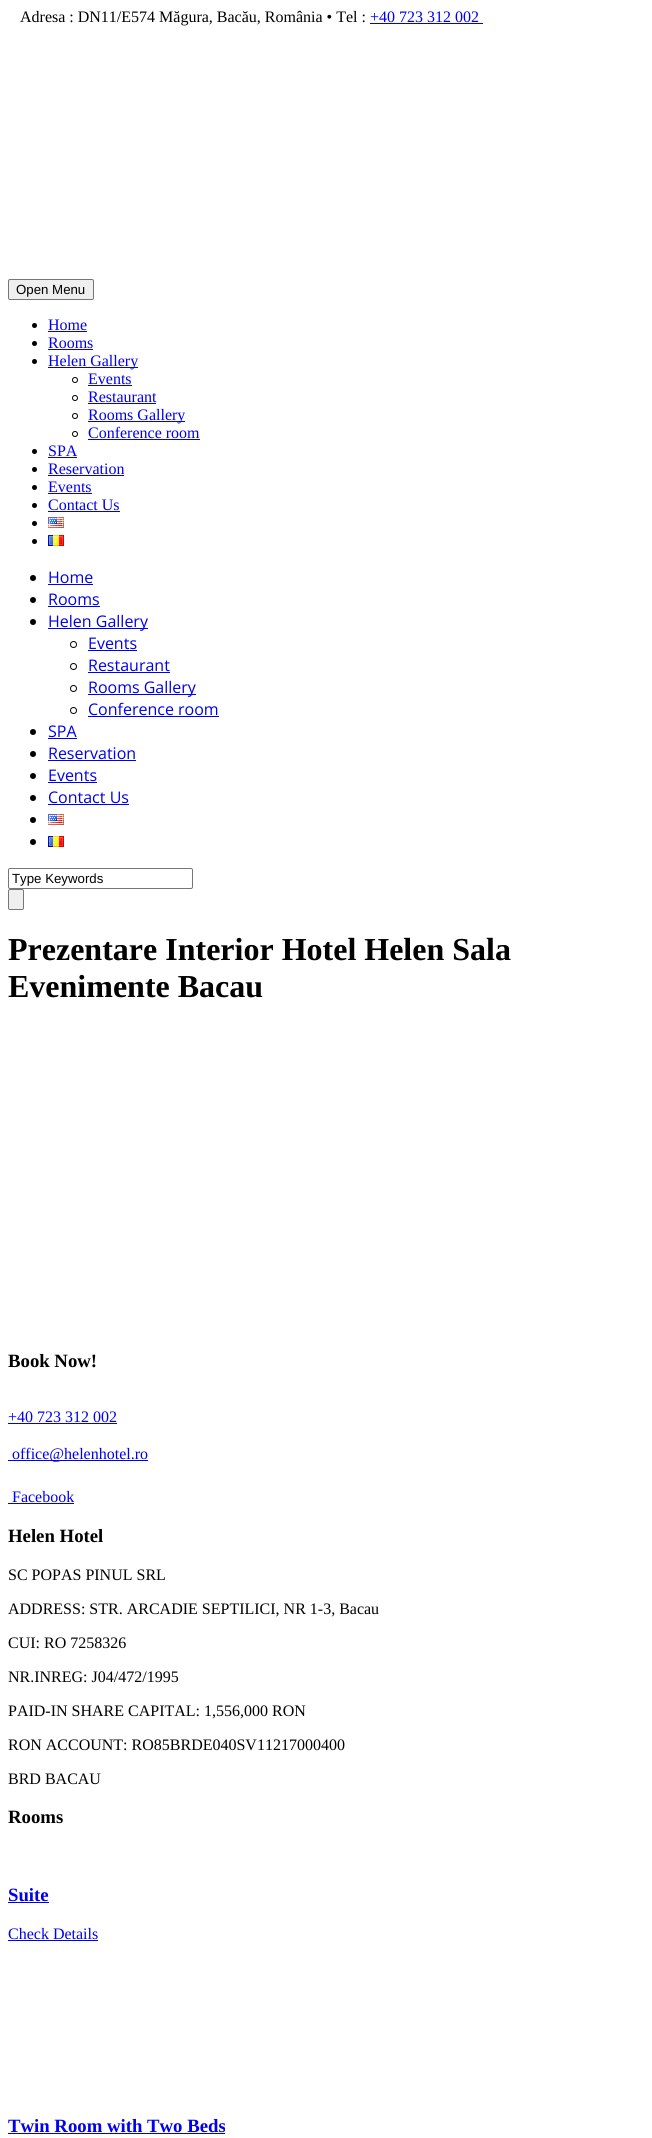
import math
import cairo

surface = cairo.ImageSurface(cairo.Format.RGB24, 652, 2138)
ctx = cairo.Context(surface)
options = cairo.FontOptions()
options.set_hint_metrics(cairo.HintMetrics.OFF)
options.set_hint_style(cairo.HintStyle.NONE)
ctx.set_font_options(options)
ctx.set_miter_limit(4)


def ink(r, g, b):
    ctx.set_source_rgb(r / 255, g / 255, b / 255)


def write(x, y, s, family, size, color, bold=False, italic=False):
    ctx.select_font_face(family, cairo.FontSlant.ITALIC if italic else cairo.FontSlant.NORMAL, cairo.FontWeight.BOLD if bold else cairo.FontWeight.NORMAL)
    ctx.set_font_size(size)
    ink(*color)
    ctx.move_to(x, y)
    ctx.show_text(s)


def block(x, y, w, h, *color):
    ink(*color)
    ctx.rectangle(x, y, w, h)
    ctx.fill()


def round_path(x, y, w, h, r):
    ctx.new_sub_path()
    for i, (u, v) in enumerate([(x + w - r, y + h - r), (x + r, y + h - r), (x + r, y + r), (x + w - r, y + r)]):
        ctx.arc(u, v, r, i * math.pi / 2, (i + 1) * math.pi / 2)
    ctx.close_path()


def paste(path, x, y, w, h):
    ctx.save()
    ctx.set_source_surface(cairo.ImageSurface.create_from_png(path), x, y)
    ctx.rectangle(x, y, w, h)
    ctx.fill()
    ctx.restore()


s1 = dict(family="Liberation Serif", size=16, color=(0, 0, 0))
s2 = dict(family="Liberation Serif", size=16, color=(0, 0, 238))
s3 = dict(family="Liberation Sans", size=13.25, color=(0, 0, 0))
s4 = dict(family="Open Sans", size=16, color=(0, 0, 238))
s5 = dict(family="Liberation Serif", size=32, color=(0, 0, 0), bold=True)
s6 = dict(family="Liberation Serif", size=18.75, color=(0, 0, 0), bold=True)
s7 = dict(family="Liberation Serif", size=18.75, color=(0, 0, 238), bold=True)

ink(255, 255, 255)
ctx.paint()
write(20, 22, "Adresa : DN11/E574 Măgura, Bacău, România • Tel :", **s1)
write(370, 22, "+40 723 312 002", **s2)
block(370, 23, 113, 1, 0, 0, 238)
ink(239, 239, 239)
round_path(8.5, 279.5, 85, 20, 1.5)
ctx.fill_preserve()
ink(118, 118, 118)
ctx.set_line_width(1)
ctx.stroke()
write(16, 294, "Open Menu", **s3)
ctx.new_path()
ctx.arc(34.5, 325.5, 2.5, 0, 2 * math.pi)
ctx.fill()
write(48, 330, "Home", **s2)
block(48, 331, 39, 1, 0, 0, 238)
ink(0, 0, 0)
ctx.new_path()
ctx.arc(34.5, 343.5, 2.5, 0, 2 * math.pi)
ctx.fill()
write(48, 348, "Rooms", **s2)
block(48, 349, 45, 1, 0, 0, 238)
ink(0, 0, 0)
ctx.new_path()
ctx.arc(34.5, 361.5, 2.5, 0, 2 * math.pi)
ctx.fill()
block(48, 367, 90, 1, 0, 0, 238)
write(48, 366, "Helen Gallery", **s2)
ctx.new_path()
ctx.arc(75, 380, 2.5, 0, 2 * math.pi)
ink(0, 0, 0)
ctx.stroke()
write(88, 384, "Events", **s2)
block(88, 385, 44, 1, 0, 0, 238)
ctx.new_path()
ctx.arc(75, 398, 2.5, 0, 2 * math.pi)
ink(0, 0, 0)
ctx.stroke()
write(88, 402, "Restaurant", **s2)
block(88, 403, 68, 1, 0, 0, 238)
ctx.new_path()
ctx.arc(75, 416, 2.5, 0, 2 * math.pi)
ink(0, 0, 0)
ctx.stroke()
block(88, 421, 97, 1, 0, 0, 238)
write(88, 420, "Rooms Gallery", **s2)
ctx.new_path()
ctx.arc(75, 434, 2.5, 0, 2 * math.pi)
ink(0, 0, 0)
ctx.stroke()
write(88, 438, "Conference room", **s2)
block(88, 439, 112, 1, 0, 0, 238)
ink(0, 0, 0)
ctx.new_path()
ctx.arc(34.5, 451.5, 2.5, 0, 2 * math.pi)
ctx.fill()
write(48, 456, "SPA", **s2)
block(48, 457, 29, 1, 0, 0, 238)
ink(0, 0, 0)
ctx.new_path()
ctx.arc(34.5, 469.5, 2.5, 0, 2 * math.pi)
ctx.fill()
write(48, 474, "Reservation", **s2)
block(48, 475, 76, 1, 0, 0, 238)
ink(0, 0, 0)
ctx.new_path()
ctx.arc(34.5, 487.5, 2.5, 0, 2 * math.pi)
ctx.fill()
write(48, 492, "Events", **s2)
block(48, 493, 44, 1, 0, 0, 238)
ink(0, 0, 0)
ctx.new_path()
ctx.arc(34.5, 505.5, 2.5, 0, 2 * math.pi)
ctx.fill()
write(48, 510, "Contact Us", **s2)
block(48, 511, 72, 1, 0, 0, 238)
ink(0, 0, 0)
ctx.new_path()
ctx.arc(34.5, 523.5, 2.5, 0, 2 * math.pi)
ctx.fill()
paste("pic1.png", 48, 517, 16, 11)
ctx.arc(34.5, 541.5, 2.5, 0, 2 * math.pi)
ctx.fill()
paste("pic2.png", 48, 535, 16, 11)
ctx.arc(33, 578, 3, 0, 2 * math.pi)
ctx.fill()
write(48, 583, "Home", **s4)
block(48, 584, 45, 1, 0, 0, 238)
ink(0, 0, 0)
ctx.new_path()
ctx.arc(33, 600, 3, 0, 2 * math.pi)
ctx.fill()
write(48, 605, "Rooms", **s4)
block(48, 606, 52, 1, 0, 0, 238)
ink(0, 0, 0)
ctx.new_path()
ctx.arc(33, 622, 3, 0, 2 * math.pi)
ctx.fill()
block(48, 628, 100, 1, 0, 0, 238)
write(48, 627, "Helen Gallery", **s4)
ctx.new_path()
ctx.arc(73.5, 644.5, 3, 0, 2 * math.pi)
ink(0, 0, 0)
ctx.stroke()
write(88, 649, "Events", **s4)
block(88, 650, 49, 1, 0, 0, 238)
ctx.new_path()
ctx.arc(73.5, 666.5, 3, 0, 2 * math.pi)
ink(0, 0, 0)
ctx.stroke()
write(88, 671, "Restaurant", **s4)
block(88, 672, 82, 1, 0, 0, 238)
ctx.new_path()
ctx.arc(73.5, 688.5, 3, 0, 2 * math.pi)
ink(0, 0, 0)
ctx.stroke()
block(88, 694, 108, 1, 0, 0, 238)
write(88, 693, "Rooms Gallery", **s4)
ctx.new_path()
ctx.arc(73.5, 710.5, 3, 0, 2 * math.pi)
ink(0, 0, 0)
ctx.stroke()
write(88, 715, "Conference room", **s4)
block(88, 716, 131, 1, 0, 0, 238)
ink(0, 0, 0)
ctx.new_path()
ctx.arc(33, 732, 3, 0, 2 * math.pi)
ctx.fill()
write(48, 737, "SPA", **s4)
block(48, 738, 29, 1, 0, 0, 238)
ink(0, 0, 0)
ctx.new_path()
ctx.arc(33, 754, 3, 0, 2 * math.pi)
ctx.fill()
write(48, 759, "Reservation", **s4)
block(48, 760, 88, 1, 0, 0, 238)
ink(0, 0, 0)
ctx.new_path()
ctx.arc(33, 776, 3, 0, 2 * math.pi)
ctx.fill()
write(48, 781, "Events", **s4)
block(48, 782, 49, 1, 0, 0, 238)
ink(0, 0, 0)
ctx.new_path()
ctx.arc(33, 798, 3, 0, 2 * math.pi)
ctx.fill()
write(48, 803, "Contact Us", **s4)
block(48, 804, 81, 1, 0, 0, 238)
ink(0, 0, 0)
ctx.new_path()
ctx.arc(33, 820, 3, 0, 2 * math.pi)
ctx.fill()
paste("pic1.png", 48, 814, 16, 11)
ctx.arc(33, 842, 3, 0, 2 * math.pi)
ctx.fill()
paste("pic2.png", 48, 836, 16, 11)
round_path(8.5, 868.5, 184, 20, 1.5)
ink(118, 118, 118)
ctx.stroke()
write(12, 883, "Type Keywords", **s3)
ink(239, 239, 239)
round_path(8.5, 889.5, 15, 20, 1.5)
ctx.fill_preserve()
ink(118, 118, 118)
ctx.stroke()
write(8, 960, "Prezentare Interior Hotel Helen Sala", **s5)
write(8, 997, "Evenimente Bacau", **s5)
write(8, 1367, "Book Now!", **s6)
write(8, 1422, "+40 723 312 002", **s2)
block(8, 1423, 109, 1, 0, 0, 238)
block(8, 1460, 140, 1, 0, 0, 238)
write(12, 1459, "office@helenhotel.ro", **s2)
write(12, 1502, "Facebook", **s2)
block(8, 1503, 66, 1, 0, 0, 238)
write(8, 1542, "Helen Hotel", **s6)
write(8, 1580, "SC POPAS PINUL SRL", **s1)
write(8, 1614, "ADDRESS: STR. ARCADIE SEPTILICI, NR 1-3, Bacau", **s1)
write(8, 1648, "CUI: RO 7258326", **s1)
write(8, 1682, "NR.INREG: J04/472/1995", **s1)
write(8, 1716, "PAID-IN SHARE CAPITAL: 1,556,000 RON", **s1)
write(8, 1750, "RON ACCOUNT: RO85BRDE040SV11217000400", **s1)
write(8, 1784, "BRD BACAU", **s1)
write(8, 1823, "Rooms", **s6)
write(8, 1901, "Suite", **s7)
block(8, 1902, 41, 1, 0, 0, 238)
write(8, 1939, "Check Details", **s2)
block(8, 1940, 90, 1, 0, 0, 238)
write(8, 2132, "Twin Room with Two Beds", **s7)
block(8, 2133, 217, 1, 0, 0, 238)
surface.write_to_png("screenshot.png")
